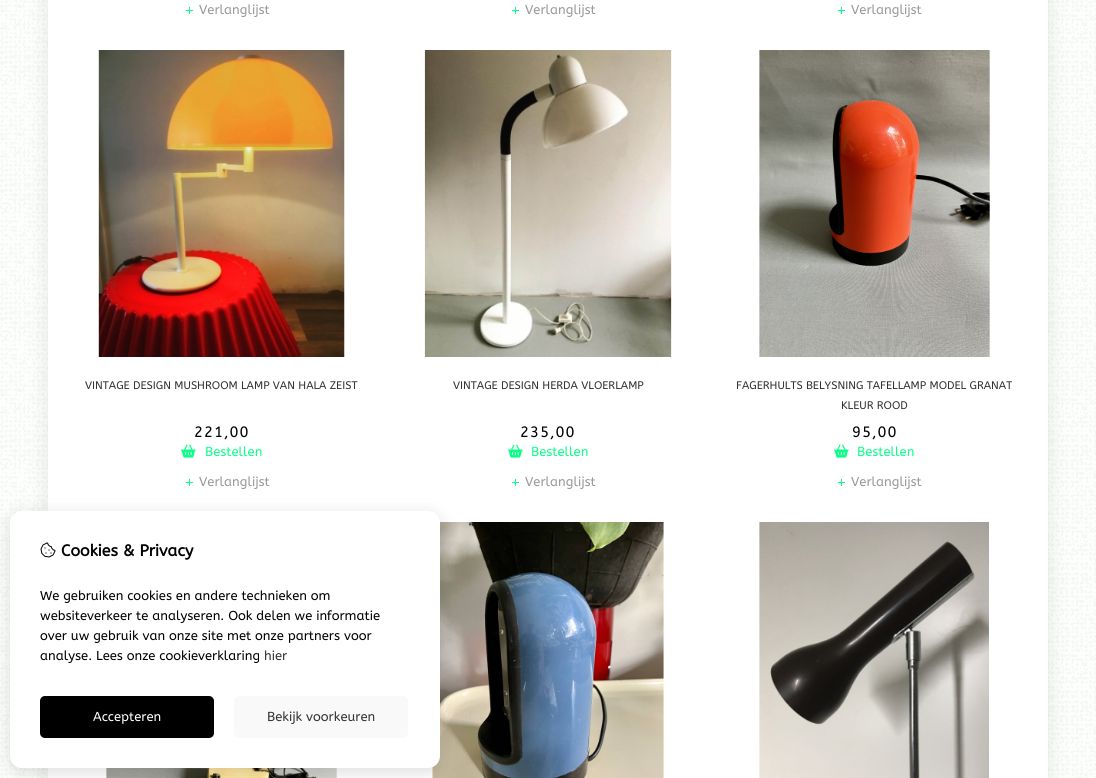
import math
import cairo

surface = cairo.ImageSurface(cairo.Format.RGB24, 1096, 778)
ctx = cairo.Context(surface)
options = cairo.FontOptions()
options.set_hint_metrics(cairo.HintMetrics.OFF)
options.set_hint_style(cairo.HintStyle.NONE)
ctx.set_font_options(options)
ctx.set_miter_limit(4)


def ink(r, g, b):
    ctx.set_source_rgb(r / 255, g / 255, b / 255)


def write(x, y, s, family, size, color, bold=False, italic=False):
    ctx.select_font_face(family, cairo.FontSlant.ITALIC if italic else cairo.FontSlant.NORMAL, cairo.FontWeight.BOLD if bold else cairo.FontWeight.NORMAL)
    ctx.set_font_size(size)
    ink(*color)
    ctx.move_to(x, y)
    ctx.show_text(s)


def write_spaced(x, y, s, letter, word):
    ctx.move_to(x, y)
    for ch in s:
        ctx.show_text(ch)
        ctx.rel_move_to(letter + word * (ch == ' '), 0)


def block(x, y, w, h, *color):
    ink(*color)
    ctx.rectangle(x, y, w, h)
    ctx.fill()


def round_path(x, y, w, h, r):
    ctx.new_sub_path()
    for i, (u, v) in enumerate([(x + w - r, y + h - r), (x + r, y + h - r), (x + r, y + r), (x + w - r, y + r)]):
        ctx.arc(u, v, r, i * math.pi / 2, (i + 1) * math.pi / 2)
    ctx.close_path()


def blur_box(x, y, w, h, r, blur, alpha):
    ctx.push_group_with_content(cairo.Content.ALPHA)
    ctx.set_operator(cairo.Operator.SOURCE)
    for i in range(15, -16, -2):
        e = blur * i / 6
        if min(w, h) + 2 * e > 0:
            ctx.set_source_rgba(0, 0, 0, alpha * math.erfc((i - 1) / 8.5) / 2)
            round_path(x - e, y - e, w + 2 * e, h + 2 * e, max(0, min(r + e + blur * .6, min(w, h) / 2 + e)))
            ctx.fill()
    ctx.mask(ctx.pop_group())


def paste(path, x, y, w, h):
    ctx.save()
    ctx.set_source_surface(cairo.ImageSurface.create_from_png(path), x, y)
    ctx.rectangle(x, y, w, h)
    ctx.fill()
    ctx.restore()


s1 = dict(family="ABeeZee", size=13, color=(153, 153, 153))
s2 = dict(family="ABeeZee", size=11, color=(51, 51, 51))
s3 = dict(family="ABeeZee", size=13, color=(10, 255, 137))
s4 = dict(family="ABeeZee", size=16, color=(0, 0, 0), bold=True)
s5 = dict(family="ABeeZee", size=13, color=(0, 0, 0))
s6 = dict(family="ABeeZee", size=13, color=(51, 51, 51))
s7 = dict(family="ABeeZee", size=13, color=(255, 255, 255))

ink(252, 255, 252)
ctx.paint()
paste("pic1.png", 0, 0, 1096, 778)
ink(0, 0, 0)
blur_box(48, -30, 1000, 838, 0, 10, 0.1)
block(48, 0, 1000, 778, 255, 255, 255)
block(186, 7, 7, 7, 10, 255, 137)
paste("pic2.png", 184, 5, 10, 10)
write(199, 14, "Verlanglijst", **s1)
block(512, 7, 7, 7, 10, 255, 137)
paste("pic2.png", 510, 5, 10, 10)
write(525, 14, "Verlanglijst", **s1)
block(838, 7, 7, 7, 10, 255, 137)
paste("pic2.png", 836, 5, 10, 10)
write(851, 14, "Verlanglijst", **s1)
paste("pic3.png", 98, 50, 247, 307)
write(85, 389, "VINTAGE DESIGN MUSHROOM LAMP VAN HALA ZEIST", **s2)
ctx.set_font_size(15)
ink(0, 0, 0)
write_spaced(194, 437, "221,00", 1, 0)
paste("pic4.png", 181, 444, 15, 14)
write(205, 456, "Bestellen", **s3)
block(186, 479, 7, 7, 10, 255, 137)
paste("pic2.png", 184, 477, 10, 10)
write(199, 486, "Verlanglijst", **s1)
paste("pic5.png", 424, 50, 248, 307)
write(453, 389, "VINTAGE DESIGN HERDA VLOERLAMP", **s2)
ctx.set_font_size(15)
ink(0, 0, 0)
write_spaced(520, 437, "235,00", 1, 0)
paste("pic4.png", 508, 444, 15, 14)
write(531, 456, "Bestellen", **s3)
block(512, 479, 7, 7, 10, 255, 137)
paste("pic2.png", 510, 477, 10, 10)
write(525, 486, "Verlanglijst", **s1)
paste("pic6.png", 759, 50, 231, 307)
write(736, 389, "FAGERHULTS BELYSNING TAFELLAMP MODEL GRANAT", **s2)
write(841, 409, "KLEUR ROOD", **s2)
ctx.set_font_size(15)
ink(0, 0, 0)
write_spaced(852, 437, "95,00", 1, 0)
paste("pic4.png", 834, 444, 15, 14)
write(857, 456, "Bestellen", **s3)
block(838, 479, 7, 7, 10, 255, 137)
paste("pic2.png", 836, 477, 10, 10)
write(851, 486, "Verlanglijst", **s1)
paste("pic7.png", 106, 768, 231, 10)
paste("pic8.png", 432, 522, 232, 256)
paste("pic9.png", 759, 522, 230, 256)
ink(76, 76, 76)
blur_box(10, 515, 430, 257, 12, 8.5, 0.2)
ink(255, 255, 255)
round_path(10, 511, 430, 257, 12)
ctx.fill()
paste("pic10.png", 40, 542, 16, 16)
write(61, 556, "Cookies & Privacy", **s4)
write(40, 600, "We gebruiken cookies en andere technieken om", **s5)
write(40, 620, "websiteverkeer te analyseren. Ook delen we informatie", **s5)
write(40, 640, "over uw gebruik van onze site met onze partners voor", **s5)
write(40, 660, "analyse. Lees onze cookieverklaring", **s5)
write(264, 660, "hier", **s6)
ink(0, 0, 0)
round_path(40, 696, 174, 42, 5)
ctx.fill()
write(93, 721, "Accepteren", **s7)
ink(249, 249, 249)
round_path(234, 696, 174, 42, 5)
ctx.fill()
write(267, 721, "Bekijk voorkeuren", **s6)
surface.write_to_png("screenshot.png")
